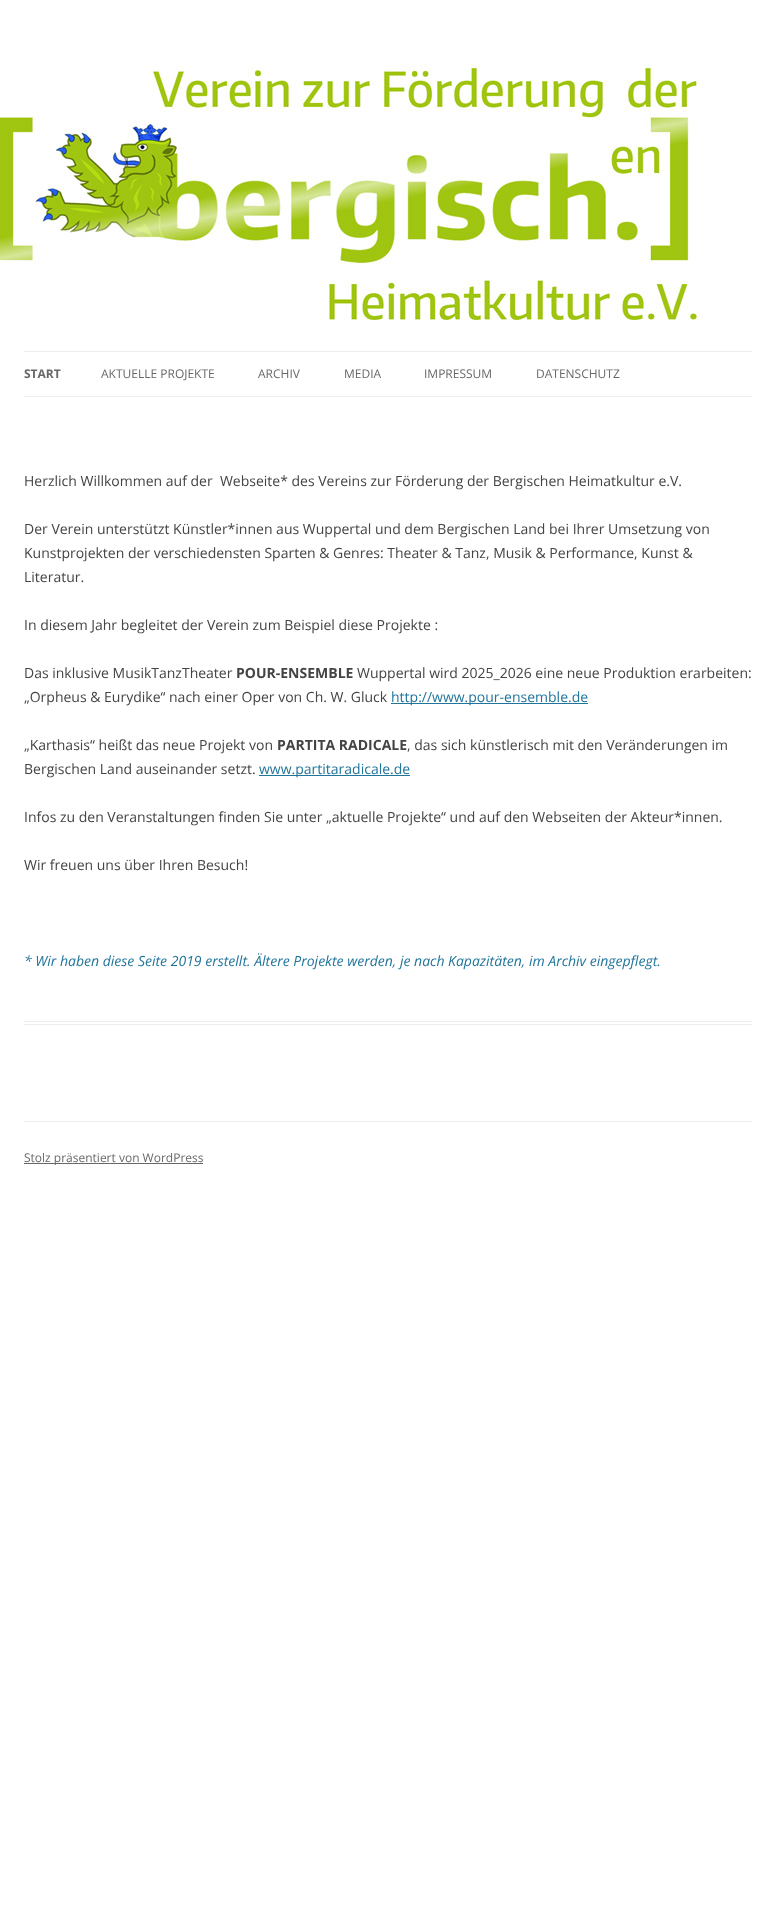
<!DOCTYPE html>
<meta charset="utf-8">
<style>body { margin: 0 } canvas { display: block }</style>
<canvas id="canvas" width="776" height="1931"></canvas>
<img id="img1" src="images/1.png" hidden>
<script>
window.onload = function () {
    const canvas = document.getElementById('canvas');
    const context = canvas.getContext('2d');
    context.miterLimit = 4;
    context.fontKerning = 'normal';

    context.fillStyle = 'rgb(255, 255, 255)';
    context.fillRect(0, 0, 776, 1931);
    context.drawImage(document.getElementById('img1'), 0, 64, 703, 257);
    context.fillStyle = 'rgb(237, 237, 237)';
    context.fillRect(24, 351, 728, 1);
    context.fillRect(24, 396, 728, 1);
    context.fillRect(24, 1021, 728, 1);
    context.fillRect(24, 1024, 728, 1);
    context.fillStyle = 'rgb(33, 117, 155)';
    context.fillRect(391, 703, 197, 1);
    context.fillRect(259, 775, 151, 1);
    context.fillStyle = 'rgb(237, 237, 237)';
    context.fillRect(24, 1121, 728, 1);
    context.fillStyle = 'rgb(104, 104, 104)';
    context.fillRect(24, 1163, 179, 1);
    context.font = 'bold 12px Open Sans';
    context.fillText('START', 24, 378);
    context.font = '12px Open Sans';
    context.fillText('AKTUELLE PROJEKTE', 101, 378);
    context.fillText('ARCHIV', 258, 378);
    context.fillText('MEDIA', 344, 378);
    context.fillText('IMPRESSUM', 424, 378);
    context.fillText('DATENSCHUTZ', 536, 378);
    context.font = '14px Open Sans';
    context.fillStyle = 'rgb(68, 68, 68)';
    context.fillText('Herzlich Willkommen auf der  Webseite* des Vereins zur Förderung der Bergischen Heimatkultur e.V.', 24, 486);
    context.fillText('Der Verein unterstützt Künstler*innen aus Wuppertal und dem Bergischen Land bei Ihrer Umsetzung von', 24, 534);
    context.fillText('Kunstprojekten der verschiedensten Sparten & Genres: Theater & Tanz, Musik & Performance, Kunst &', 24, 558);
    context.fillText('Literatur.', 24, 582);
    context.fillText('In diesem Jahr begleitet der Verein zum Beispiel diese Projekte :', 24, 630);
    context.fillText('Das inklusive MusikTanzTheater', 24, 678);
    context.font = 'bold 14px Open Sans';
    context.fillText('POUR-ENSEMBLE', 236, 678);
    context.font = '14px Open Sans';
    context.fillText('Wuppertal wird 2025_2026 eine neue Produktion erarbeiten:', 357, 678);
    context.fillText('„Orpheus & Eurydike“ nach einer Oper von Ch. W. Gluck', 24, 702);
    context.fillStyle = 'rgb(33, 117, 155)';
    context.fillText('http://www.pour-ensemble.de', 391, 702);
    context.fillStyle = 'rgb(68, 68, 68)';
    context.fillText('„Karthasis“ heißt das neue Projekt von', 24, 750);
    context.font = 'bold 14px Open Sans';
    context.fillText('PARTITA RADICALE', 277, 750);
    context.font = '14px Open Sans';
    context.fillText(', das sich künstlerisch mit den Veränderungen im', 407, 750);
    context.fillText('Bergischen Land auseinander setzt.', 24, 774);
    context.fillStyle = 'rgb(33, 117, 155)';
    context.fillText('www.partitaradicale.de', 259, 774);
    context.fillStyle = 'rgb(68, 68, 68)';
    context.fillText('Infos zu den Veranstaltungen finden Sie unter „aktuelle Projekte“ und auf den Webseiten der Akteur*innen.', 24, 822);
    context.fillText('Wir freuen uns über Ihren Besuch!', 24, 870);
    context.font = 'italic 14px Open Sans';
    context.fillStyle = 'rgb(33, 117, 155)';
    context.fillText('* Wir haben diese Seite 2019 erstellt. Ältere Projekte werden, je nach Kapazitäten, im Archiv eingepflegt.', 24, 966);
    context.font = '12px Open Sans';
    context.fillStyle = 'rgb(104, 104, 104)';
    context.fillText('Stolz präsentiert von WordPress', 24, 1162);
};
</script>
